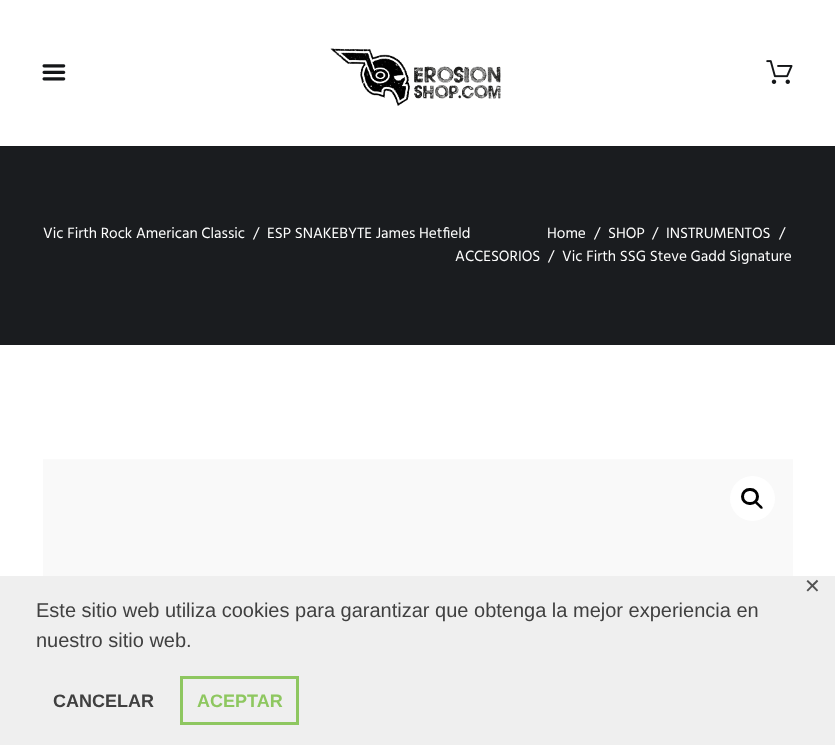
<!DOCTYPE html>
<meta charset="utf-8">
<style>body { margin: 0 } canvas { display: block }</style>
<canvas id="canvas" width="835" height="745"></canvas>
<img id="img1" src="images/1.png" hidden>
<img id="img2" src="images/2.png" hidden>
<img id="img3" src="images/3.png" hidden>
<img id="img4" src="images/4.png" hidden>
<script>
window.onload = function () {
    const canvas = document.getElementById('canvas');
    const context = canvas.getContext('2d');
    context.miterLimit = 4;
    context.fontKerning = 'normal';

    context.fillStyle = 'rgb(255, 255, 255)';
    context.fillRect(0, 0, 835, 745);
    context.drawImage(document.getElementById('img1'), 42, 64, 24, 17);
    context.drawImage(document.getElementById('img2'), 330, 48, 171, 58);
    context.drawImage(document.getElementById('img3'), 766, 60, 27, 24);
    context.fillStyle = 'rgb(26, 28, 31)';
    context.fillRect(0, 147, 835, 198);
    context.fillStyle = 'rgb(23, 25, 28)';
    context.fillRect(0, 146, 835, 1);
    context.drawImage(document.getElementById('img4'), 43, 459, 750, 117);
    context.fillStyle = 'rgb(255, 255, 255)';
    context.beginPath();
    context.arc(752.5, 498.5, 22.5, 0, 2 * Math.PI);
    context.fill();
    context.beginPath();
    context.roundRect(742.5, 489.5, 15, 14, 7);
    context.strokeStyle = 'rgb(0, 0, 0)';
    context.lineWidth = 3;
    context.stroke();
    context.fillStyle = 'rgb(0, 0, 0)';
    context.beginPath();
    context.moveTo(755, 501.5);
    context.bezierCurveTo(756.5, 500, 759, 503.5, 759.5, 504);
    context.bezierCurveTo(760.5, 505, 763.5, 507, 762.5, 508.5);
    context.bezierCurveTo(761, 510, 758.5, 506.5, 758, 506);
    context.bezierCurveTo(757, 505, 754, 503, 755, 501.5);
    context.closePath();
    context.fill();
    context.fillStyle = 'rgb(239, 239, 239)';
    context.fillRect(0, 576, 835, 169);
    context.strokeStyle = 'rgb(142, 199, 96)';
    context.strokeRect(181.5, 677.5, 116, 46);
    context.font = '15.25px Hind';
    context.fillStyle = 'rgb(255, 255, 255)';
    context.fillText('Vic Firth Rock American Classic', 43, 238);
    context.fillText('/', 253, 238);
    context.fillText('ESP SNAKEBYTE James Hetfield', 267, 238);
    context.fillText('Home', 547, 238);
    context.fillText('/', 594, 238);
    context.fillText('SHOP', 608, 238);
    context.fillText('/', 652, 238);
    context.fillText('INSTRUMENTOS', 666, 238);
    context.fillText('/', 779, 238);
    context.fillText('ACCESORIOS', 455, 261);
    context.fillText('/', 548, 261);
    context.fillText('Vic Firth SSG Steve Gadd Signature', 562, 261);
    context.font = '20px DejaVu Sans';
    context.fillStyle = 'rgb(82, 82, 82)';
    context.fillText('✕', 804, 593);
    context.font = '20px Liberation Sans';
    context.fillStyle = 'rgb(64, 64, 64)';
    context.fillText('Este sitio web utiliza cookies para garantizar que obtenga la mejor experiencia en', 36, 617);
    context.fillText('nuestro sitio web.', 36, 647);
    context.font = 'bold 18px Liberation Sans';
    context.fillText('CANCELAR', 53, 707);
    context.fillStyle = 'rgb(142, 199, 96)';
    context.fillText('ACEPTAR', 197, 707);
};
</script>
